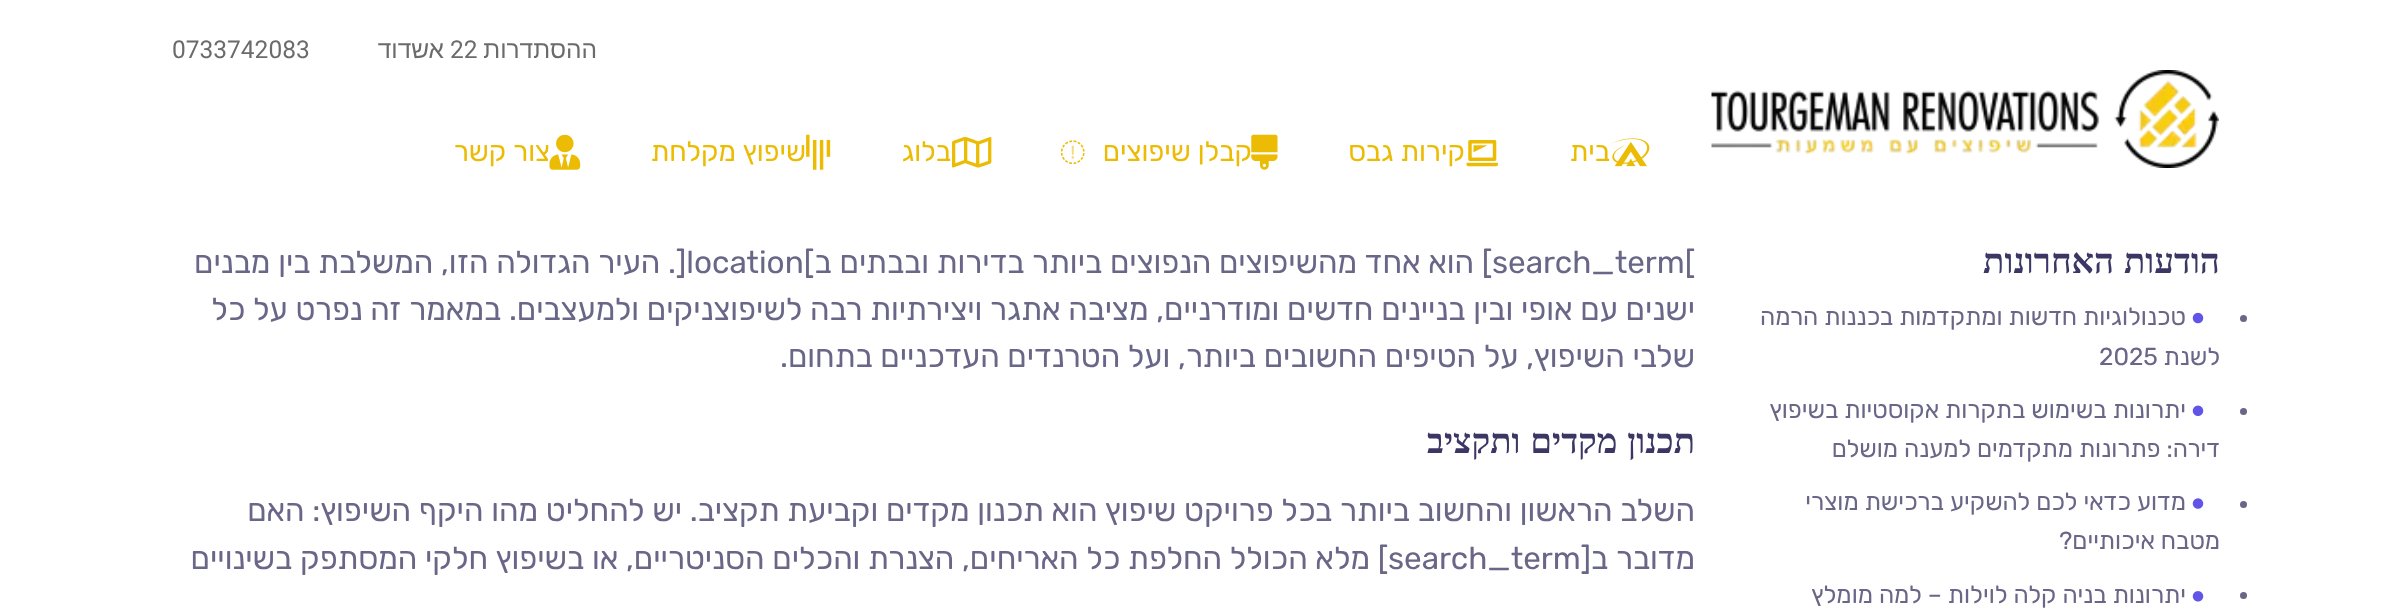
<!DOCTYPE html>
<meta charset="utf-8">
<style>body { margin: 0 } canvas { display: block }</style>
<canvas id="canvas" width="2392" height="612"></canvas>
<img id="img1" src="images/1.png" hidden>
<img id="img2" src="images/2.png" hidden>
<img id="img3" src="images/3.png" hidden>
<img id="img4" src="images/4.png" hidden>
<img id="img5" src="images/5.png" hidden>
<img id="img6" src="images/6.png" hidden>
<img id="img7" src="images/7.png" hidden>
<img id="img8" src="images/8.png" hidden>
<img id="img9" src="images/9.png" hidden>
<img id="img10" src="images/10.png" hidden>
<img id="img11" src="images/11.png" hidden>
<img id="img12" src="images/12.png" hidden>
<script>
window.onload = function () {
    const canvas = document.getElementById('canvas');
    const context = canvas.getContext('2d');
    context.miterLimit = 4;
    context.fontKerning = 'normal';

    context.fillStyle = 'rgb(255, 255, 255)';
    context.fillRect(0, 0, 2392, 612);
    context.drawImage(document.getElementById('img1'), 1711, 70, 508, 98);
    context.drawImage(document.getElementById('img2'), 1611, 138, 39, 29);
    context.drawImage(document.getElementById('img3'), 1466, 140, 32, 27);
    context.drawImage(document.getElementById('img4'), 1251, 134, 27, 36);
    context.drawImage(document.getElementById('img5'), 1060, 140, 25, 25);
    context.drawImage(document.getElementById('img6'), 952, 137, 40, 31);
    context.drawImage(document.getElementById('img7'), 806, 134, 25, 36);
    context.drawImage(document.getElementById('img8'), 549, 134, 32, 36);
    context.fillStyle = 'rgb(105, 102, 135)';
    context.beginPath();
    context.arc(2243.5, 318.5, 3.5, 0, 2 * Math.PI);
    context.fill();
    context.drawImage(document.getElementById('img9'), 2192, 312, 12, 12);
    context.beginPath();
    context.arc(2243.5, 411.5, 3.5, 0, 2 * Math.PI);
    context.fill();
    context.drawImage(document.getElementById('img10'), 2192, 405, 12, 11);
    context.beginPath();
    context.arc(2243.5, 504.5, 3.5, 0, 2 * Math.PI);
    context.fill();
    context.drawImage(document.getElementById('img11'), 2192, 498, 12, 11);
    context.beginPath();
    context.arc(2243.5, 595.5, 3.5, 0, 2 * Math.PI);
    context.fill();
    context.drawImage(document.getElementById('img12'), 2192, 591, 12, 11);
    context.direction = 'rtl';
    context.font = '24.5px Liberation Sans';
    context.fillStyle = 'rgb(107, 107, 107)';
    context.fillText('ההסתדרות', 597, 58);
    context.direction = 'ltr';
    context.font = '24.5px Roboto';
    context.fillText('22', 450, 58);
    context.direction = 'rtl';
    context.font = '24.5px Liberation Sans';
    context.fillText('אשדוד', 444, 58);
    context.direction = 'ltr';
    context.font = '24.5px Roboto';
    context.fillText('0733742083', 172, 58);
    context.direction = 'rtl';
    context.font = '28px Rubik';
    context.fillStyle = 'rgb(235, 188, 3)';
    context.fillText('בית', 1610, 161);
    context.fillText('קירות גבס', 1465, 161);
    context.fillText('קבלן שיפוצים', 1252, 161);
    context.fillText('בלוג', 951, 161);
    context.fillText('שיפוץ מקלחת', 806, 161);
    context.fillText('צור קשר', 550, 161);
    context.wordSpacing = '1px';
    context.font = 'bold 35px Liberation Serif';
    context.fillStyle = 'rgb(59, 54, 99)';
    context.fillText('הודעות האחרונות', 2220, 273);
    context.wordSpacing = '0px';
    context.font = '24.5px Rubik';
    context.fillStyle = 'rgb(105, 102, 135)';
    context.fillText('טכנולוגיות חדשות ומתקדמות בכננות הרמה', 2186, 325);
    context.fillText('לשנת', 2220, 365);
    context.direction = 'ltr';
    context.fillText('2025', 2099, 365);
    context.direction = 'rtl';
    context.fillText('יתרונות בשימוש בתקרות אקוסטיות בשיפוץ', 2186, 418);
    context.fillText('דירה: פתרונות מתקדמים למענה מושלם', 2220, 457);
    context.fillText('מדוע כדאי לכם להשקיע ברכישת מוצרי', 2186, 510);
    context.fillText('מטבח איכותיים?', 2220, 549);
    context.fillText('יתרונות בניה קלה לוילות – למה מומלץ', 2186, 603);
    context.direction = 'ltr';
    context.font = '31.5px Rubik';
    context.fillText('search_term[', 1492, 273);
    context.direction = 'rtl';
    context.fillText('] הוא אחד מהשיפוצים הנפוצים ביותר בדירות ובבתים ב', 1492, 273);
    context.direction = 'ltr';
    context.fillText(']location[', 676, 273);
    context.direction = 'rtl';
    context.fillText('. העיר הגדולה הזו, המשלבת בין מבנים', 676, 273);
    context.fillText('ישנים עם אופי ובין בניינים חדשים ומודרניים, מציבה אתגר ויצירתיות רבה לשיפוצניקים ולמעצבים. במאמר זה נפרט על כל', 1695, 320);
    context.fillText('שלבי השיפוץ, על הטיפים החשובים ביותר, ועל הטרנדים העדכניים בתחום.', 1695, 367);
    context.wordSpacing = '1px';
    context.font = 'bold 35px Liberation Serif';
    context.fillStyle = 'rgb(59, 54, 99)';
    context.fillText('תכנון מקדים ותקציב', 1695, 453);
    context.wordSpacing = '0px';
    context.font = '31.5px Rubik';
    context.fillStyle = 'rgb(105, 102, 135)';
    context.fillText('השלב הראשון והחשוב ביותר בכל פרויקט שיפוץ הוא תכנון מקדים וקביעת תקציב. יש להחליט מהו היקף השיפוץ: האם', 1695, 521);
    context.fillText('מדובר ב[', 1695, 569);
    context.direction = 'ltr';
    context.fillText('search_term', 1388, 569);
    context.direction = 'rtl';
    context.fillText('] מלא הכולל החלפת כל האריחים, הצנרת והכלים הסניטריים, או בשיפוץ חלקי המסתפק בשינויים', 1388, 569);
};
</script>
